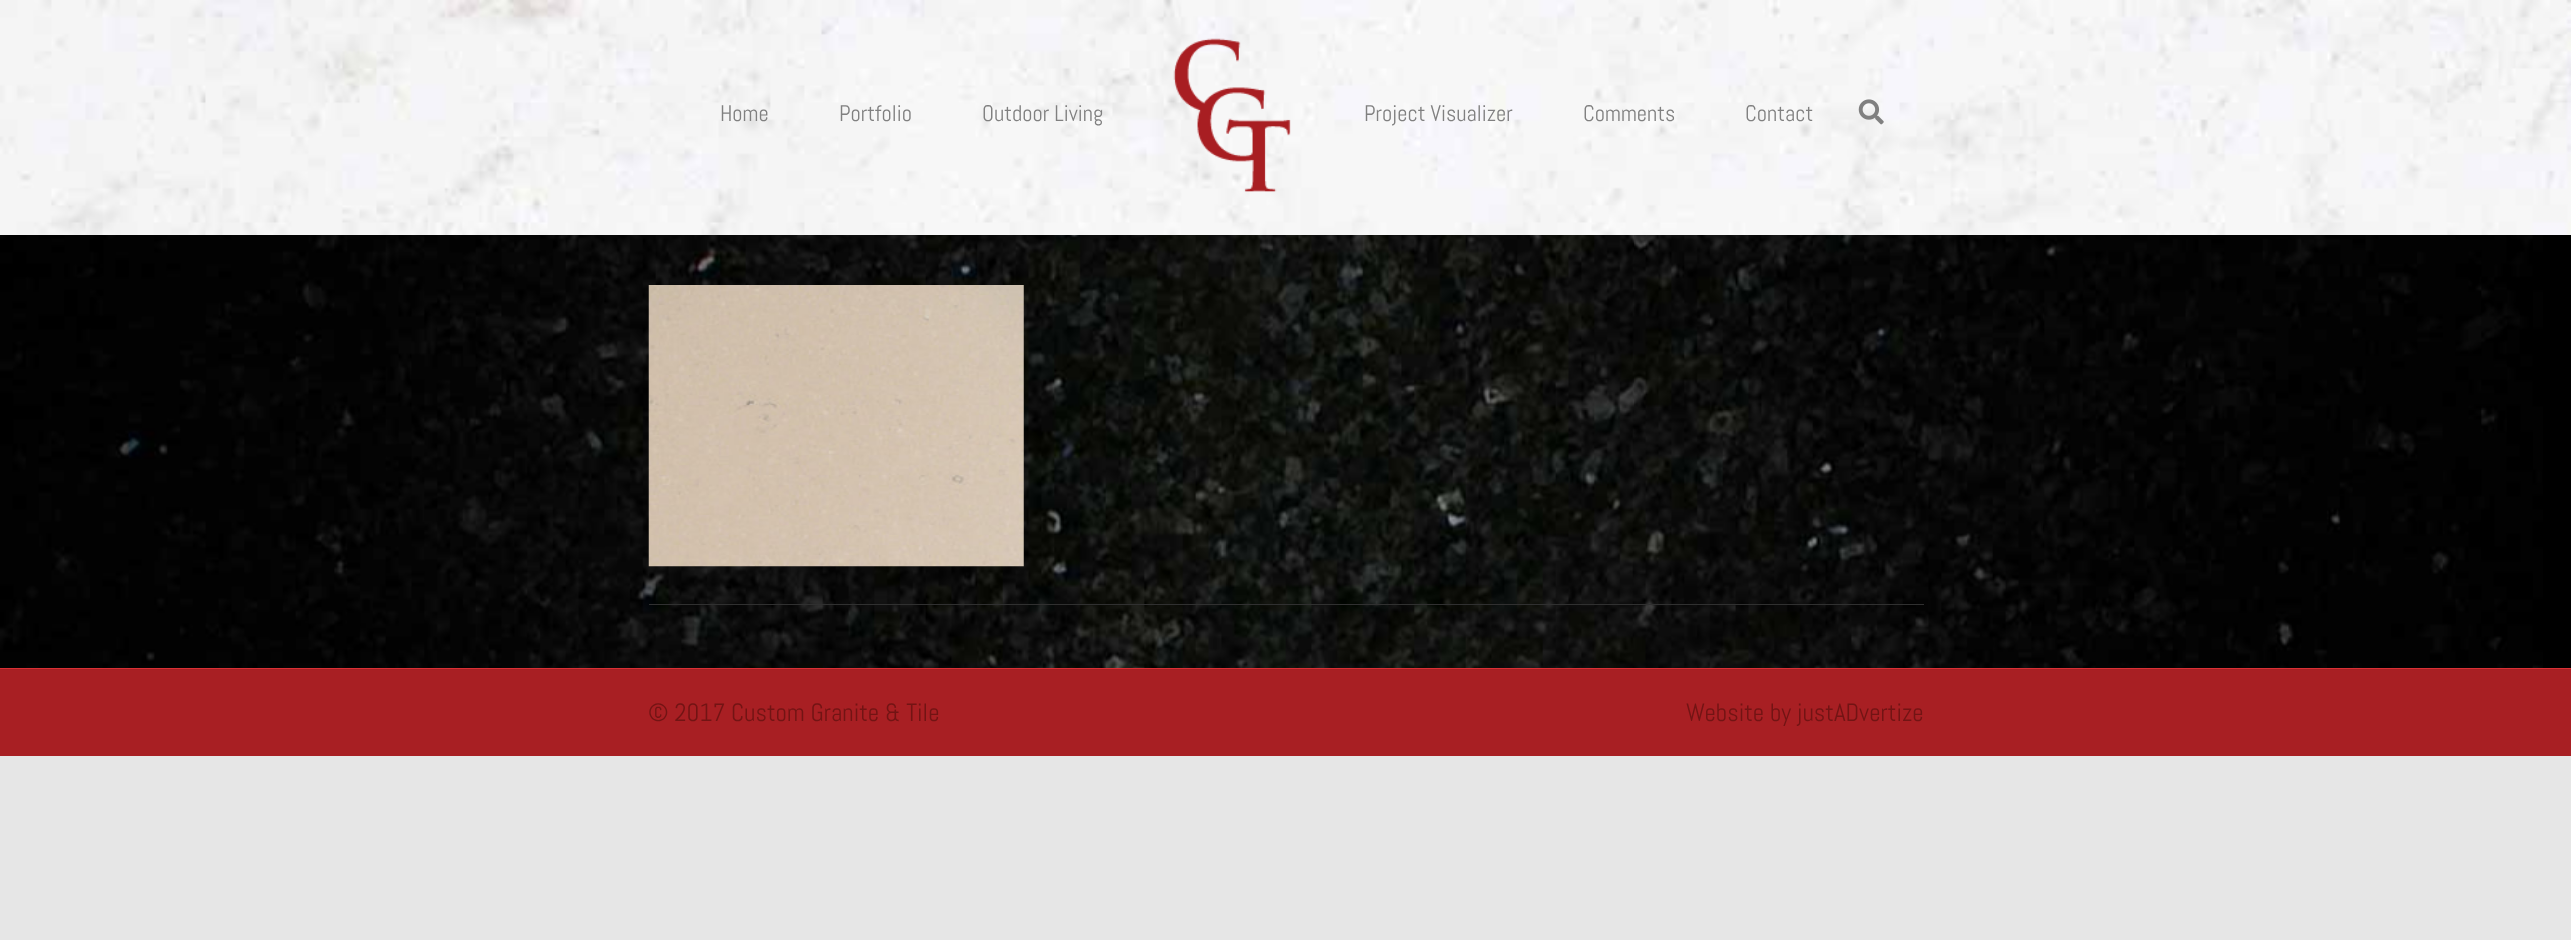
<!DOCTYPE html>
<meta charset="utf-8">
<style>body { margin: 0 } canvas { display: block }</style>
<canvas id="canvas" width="2571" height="940"></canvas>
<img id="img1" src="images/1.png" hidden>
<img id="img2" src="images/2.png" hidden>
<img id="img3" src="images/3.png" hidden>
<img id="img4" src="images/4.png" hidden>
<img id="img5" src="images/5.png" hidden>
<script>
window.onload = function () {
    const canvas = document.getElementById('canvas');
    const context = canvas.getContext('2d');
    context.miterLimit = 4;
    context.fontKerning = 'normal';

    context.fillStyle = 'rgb(230, 230, 230)';
    context.fillRect(0, 0, 2571, 940);
    context.drawImage(document.getElementById('img1'), 0, 0, 2571, 235);
    context.drawImage(document.getElementById('img2'), 1173, 38, 118, 154);
    context.drawImage(document.getElementById('img3'), 1858, 99, 26, 26);
    context.fillStyle = 'rgb(0, 0, 0)';
    context.fillRect(2543, 235, 28, 433);
    context.drawImage(document.getElementById('img4'), 0, 235, 2543, 433);
    context.drawImage(document.getElementById('img5'), 648, 285, 376, 282);
    context.fillStyle = 'rgb(48, 48, 48)';
    context.fillRect(649, 604, 1275, 1);
    context.fillStyle = 'rgb(168, 31, 35)';
    context.fillRect(0, 669, 2571, 87);
    context.fillStyle = 'rgb(217, 48, 53)';
    context.fillRect(0, 668, 2571, 1);
    context.font = '22.5px Abel';
    context.fillStyle = 'rgb(128, 128, 128)';
    context.fillText('Home', 720, 121);
    context.fillText('Portfolio', 839, 121);
    context.fillText('Outdoor Living', 982, 121);
    context.fillText('Project Visualizer', 1364, 121);
    context.fillText('Comments', 1583, 121);
    context.fillText('Contact', 1745, 121);
    context.font = '25px Abel';
    context.fillStyle = 'rgb(114, 20, 20)';
    context.fillText('© 2017 Custom Granite & Tile', 648, 721);
    context.fillText('Website by justADvertize', 1686, 721);
};
</script>
